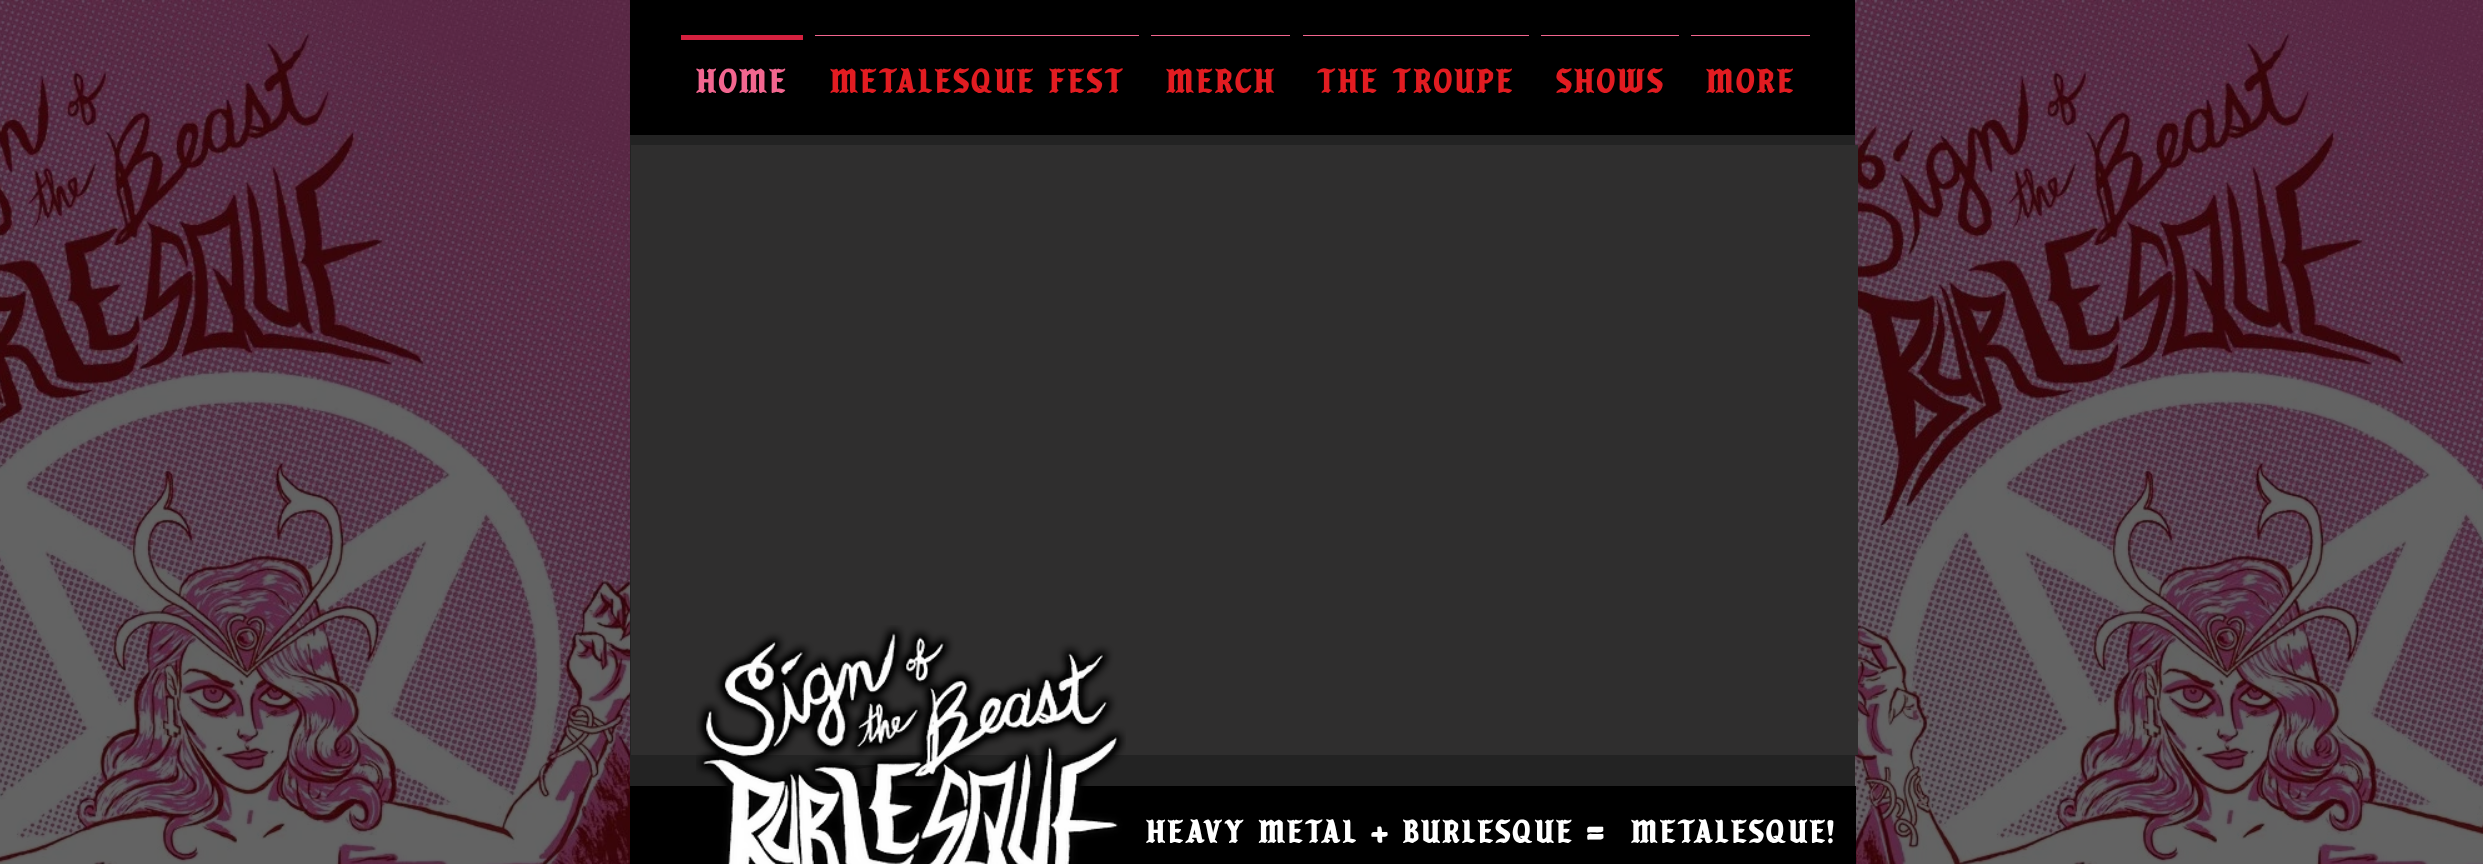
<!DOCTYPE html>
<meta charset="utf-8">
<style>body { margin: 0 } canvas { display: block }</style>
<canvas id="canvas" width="2483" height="864"></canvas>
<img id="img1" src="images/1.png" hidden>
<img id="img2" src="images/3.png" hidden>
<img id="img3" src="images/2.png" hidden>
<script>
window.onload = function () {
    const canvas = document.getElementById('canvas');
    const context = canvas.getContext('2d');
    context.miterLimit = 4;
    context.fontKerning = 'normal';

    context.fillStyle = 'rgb(0, 0, 0)';
    context.fillRect(0, 0, 2483, 864);
    context.drawImage(document.getElementById('img1'), 0, 0, 2483, 864);
    context.fillRect(630, 0, 1225, 135);
    context.fillStyle = 'rgb(212, 32, 62)';
    context.fillRect(681, 35, 122, 5);
    context.fillStyle = 'rgb(242, 102, 143)';
    context.fillRect(815, 35, 324, 1);
    context.fillRect(1151, 35, 139, 1);
    context.fillRect(1303, 35, 226, 1);
    context.fillRect(1541, 35, 138, 1);
    context.fillRect(1691, 35, 119, 1);
    context.fillStyle = 'rgb(35, 35, 35)';
    context.fillRect(630, 135, 1225, 651);
    context.fillStyle = 'rgb(47, 46, 46)';
    context.fillRect(631, 145, 1227, 610);
    context.drawImage(document.getElementById('img2'), 804, 765, 182, 21);
    context.fillStyle = 'rgb(0, 0, 0)';
    context.fillRect(630, 786, 1226, 78);
    context.drawImage(document.getElementById('img3'), 696, 625, 430, 239);
    context.font = '27.5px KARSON';
    context.fillStyle = 'rgb(242, 102, 143)';
    context.fillText('HOME', 695, 93);
    context.fillStyle = 'rgb(226, 28, 33)';
    context.fillText('METALESQUE FEST', 829, 93);
    context.fillText('MERCH', 1165, 93);
    context.fillText('THE TROUPE', 1316, 93);
    context.fillText('SHOWS', 1555, 93);
    context.fillText('More', 1705, 93);
    context.font = '26.25px KARSON';
    context.fillStyle = 'rgb(255, 255, 255)';
    context.fillText('HEAVY METAL + BURLESQUE =  METALESQUE!', 1145, 843);
};
</script>
